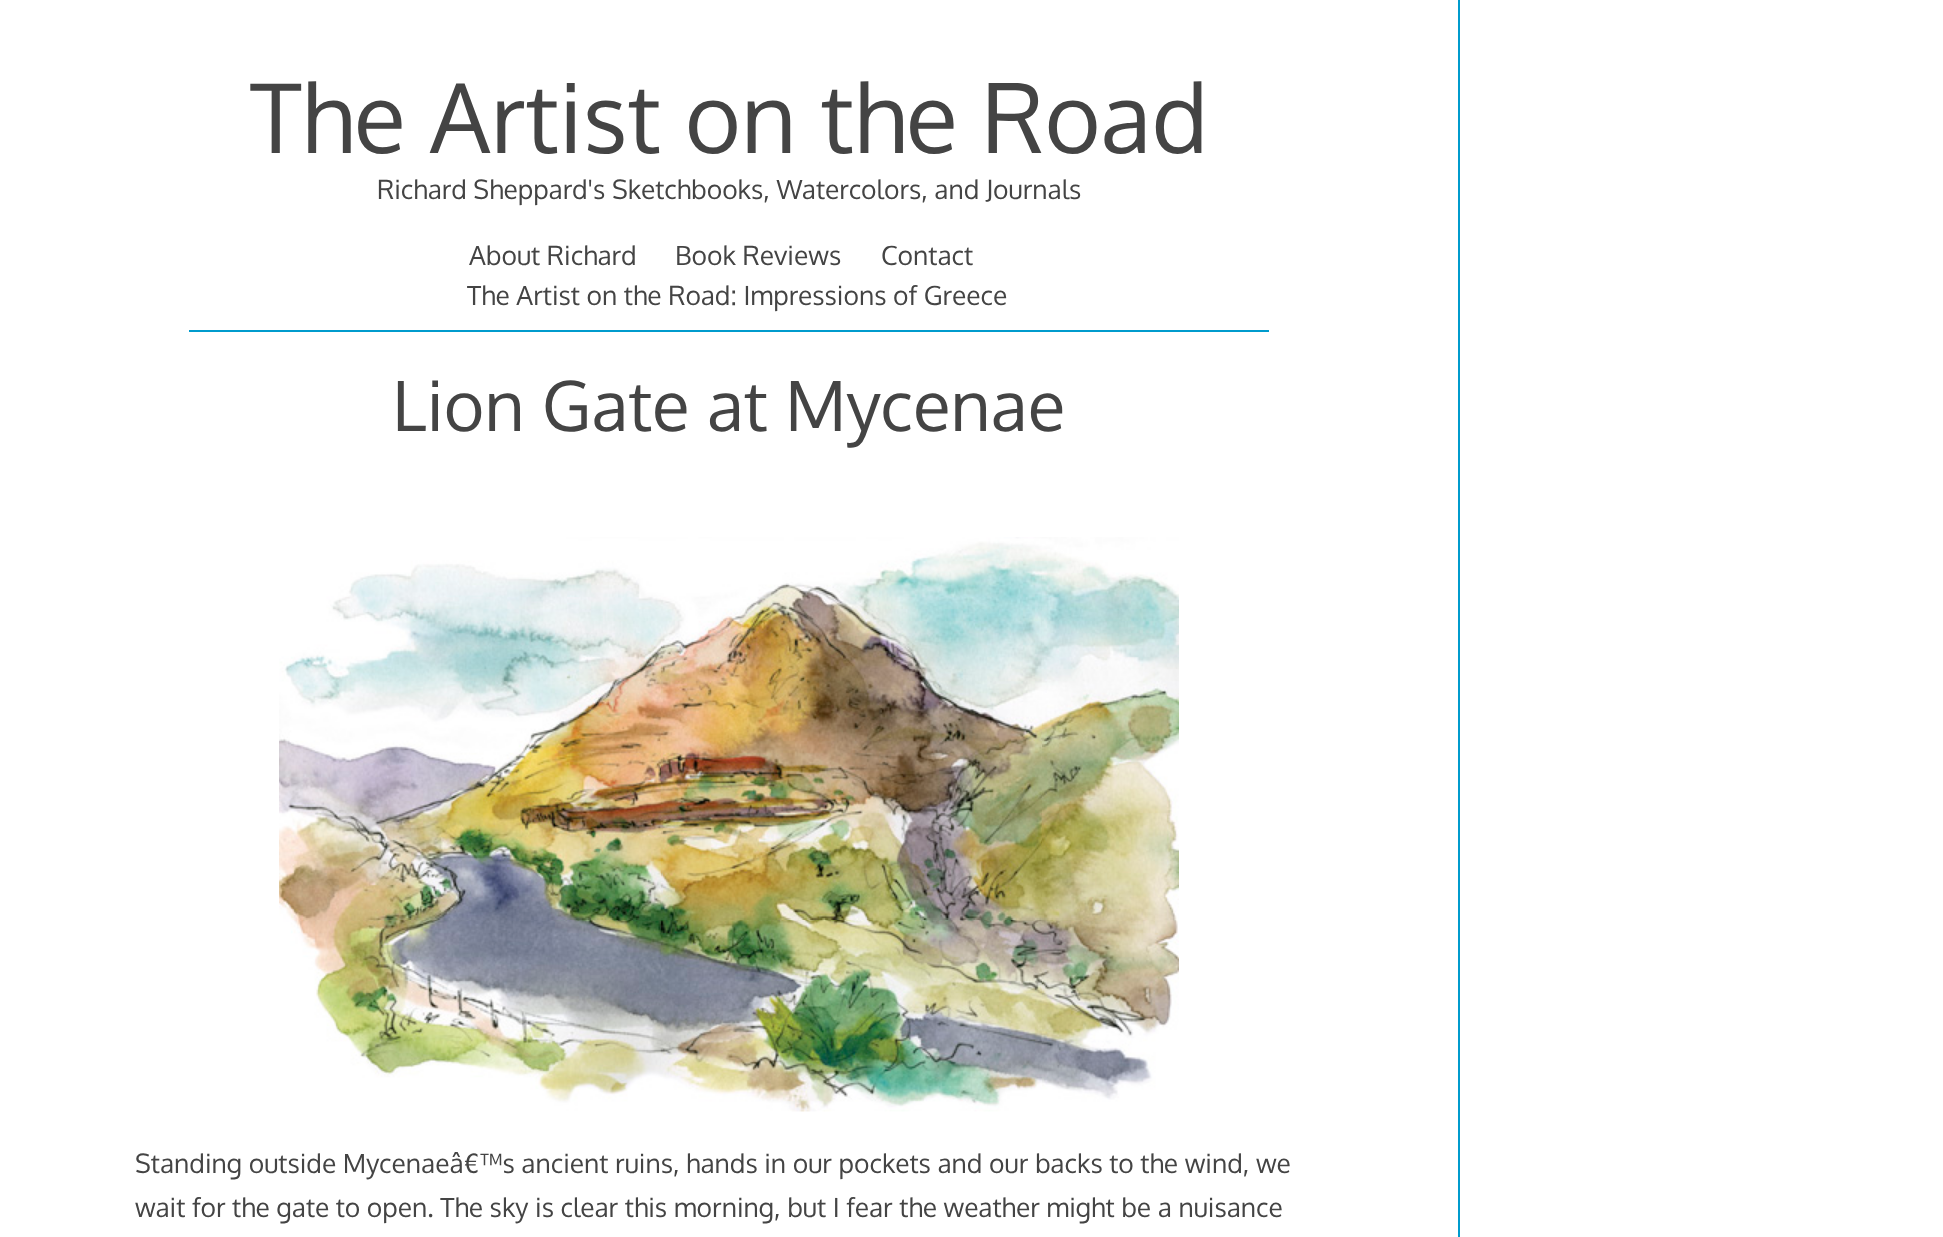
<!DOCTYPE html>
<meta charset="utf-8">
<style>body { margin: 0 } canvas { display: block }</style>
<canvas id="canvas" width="1943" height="1237"></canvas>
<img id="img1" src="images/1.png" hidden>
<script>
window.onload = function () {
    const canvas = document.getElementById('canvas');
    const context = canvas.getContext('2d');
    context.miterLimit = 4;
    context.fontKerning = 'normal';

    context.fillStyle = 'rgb(255, 255, 255)';
    context.fillRect(0, 0, 1943, 1237);
    context.fillStyle = 'rgb(0, 155, 205)';
    context.fillRect(189, 330, 1080, 2);
    context.drawImage(document.getElementById('img1'), 279, 537, 900, 575);
    context.fillRect(1458, 0, 2, 1237);
    context.font = '96px Oxygen';
    context.fillStyle = 'rgb(68, 68, 68)';
    context.fillText('The Artist on the Road', 250, 153);
    context.font = '26.4px Oxygen';
    context.fillText('Richard Sheppard\'s Sketchbooks, Watercolors, and Journals', 377, 199);
    context.fillText('About Richard', 469, 265);
    context.fillText('Book Reviews', 675, 265);
    context.fillText('Contact', 881, 265);
    context.fillText('The Artist on the Road: Impressions of Greece', 467, 305);
    context.font = '69.25px Oxygen';
    context.fillText('Lion Gate at Mycenae', 392, 431);
    context.font = '26.4px Oxygen';
    context.fillText('Standing outside Mycenaeâ€™s ancient ruins, hands in our pockets and our backs to the wind, we', 135, 1173);
    context.fillText('wait for the gate to open. The sky is clear this morning, but I fear the weather might be a nuisance', 135, 1217);
};
</script>
